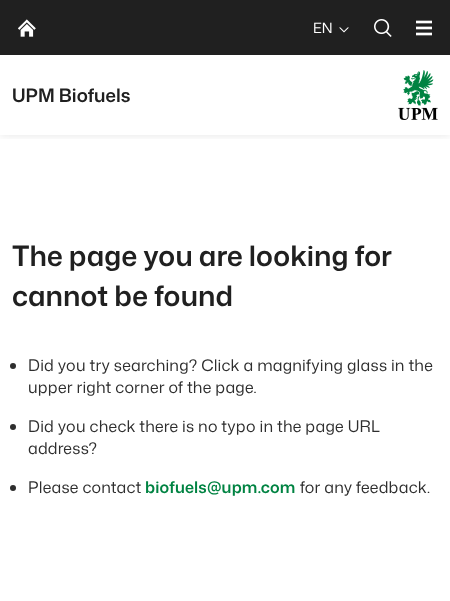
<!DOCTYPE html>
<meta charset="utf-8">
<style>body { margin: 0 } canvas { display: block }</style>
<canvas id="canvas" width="450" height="601"></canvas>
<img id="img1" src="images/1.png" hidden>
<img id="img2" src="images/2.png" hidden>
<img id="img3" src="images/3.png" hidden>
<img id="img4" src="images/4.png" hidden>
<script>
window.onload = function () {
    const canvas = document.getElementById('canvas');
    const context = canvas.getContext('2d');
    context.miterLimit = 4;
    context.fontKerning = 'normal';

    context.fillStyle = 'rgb(255, 255, 255)';
    context.fillRect(0, 0, 450, 601);
    context.save();
    context.beginPath();
    context.rect(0, 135, 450, 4);
    context.clip();
    context.fillStyle = 'rgba(0, 0, 0, 0.1)';
    context.filter = 'blur(5px)';
    context.beginPath();
    context.rect(0, 55, 450, 80);
    context.fill();
    context.filter = 'none';
    context.restore();
    context.fillStyle = 'rgb(32, 32, 32)';
    context.fillRect(0, 0, 450, 55);
    context.drawImage(document.getElementById('img1'), 18, 19, 18, 18);
    context.fillStyle = 'rgb(255, 255, 255)';
    context.beginPath();
    context.moveTo(349, 27.5);
    context.lineTo(344, 32.5);
    context.lineTo(344, 31);
    context.lineTo(347.5, 27.5);
    context.closePath();
    context.moveTo(344, 32.5);
    context.lineTo(339, 27.5);
    context.lineTo(340.5, 27.5);
    context.lineTo(344, 31);
    context.closePath();
    context.fill();
    context.drawImage(document.getElementById('img2'), 374, 19, 18, 18);
    context.drawImage(document.getElementById('img3'), 416, 20, 16, 16);
    context.drawImage(document.getElementById('img4'), 398, 70, 40, 50);
    context.fillStyle = 'rgb(46, 46, 46)';
    context.beginPath();
    context.arc(13, 366, 3, 0, 2 * Math.PI);
    context.fill();
    context.beginPath();
    context.arc(13, 427, 3, 0, 2 * Math.PI);
    context.fill();
    context.beginPath();
    context.arc(13, 488, 3, 0, 2 * Math.PI);
    context.fill();
    context.font = '14px Mona Sans';
    context.fillStyle = 'rgb(255, 255, 255)';
    context.fillText('EN', 313, 33);
    context.font = '600 18.5px Mona Sans';
    context.fillStyle = 'rgb(32, 32, 32)';
    context.fillText('UPM Biofuels', 12, 102);
    context.font = '600 28px Mona Sans';
    context.fillText('The page you are looking for', 12, 266);
    context.fillText('cannot be found', 12, 306);
    context.letterSpacing = '0.15px';
    context.font = '16px Mona Sans';
    context.fillStyle = 'rgb(46, 46, 46)';
    context.fillText('Did you try searching? Click a magnifying glass in the', 28, 371);
    context.fillText('upper right corner of the page.', 28, 393);
    context.fillText('Did you check there is no typo in the page URL', 28, 432);
    context.fillText('address?', 28, 454);
    context.fillText('Please contact', 28, 493);
    context.font = '600 16px Mona Sans';
    context.fillStyle = 'rgb(0, 131, 66)';
    context.fillText('biofuels@upm.com', 145, 493);
    context.font = '16px Mona Sans';
    context.fillStyle = 'rgb(46, 46, 46)';
    context.fillText('for any feedback.', 300, 493);
};
</script>
